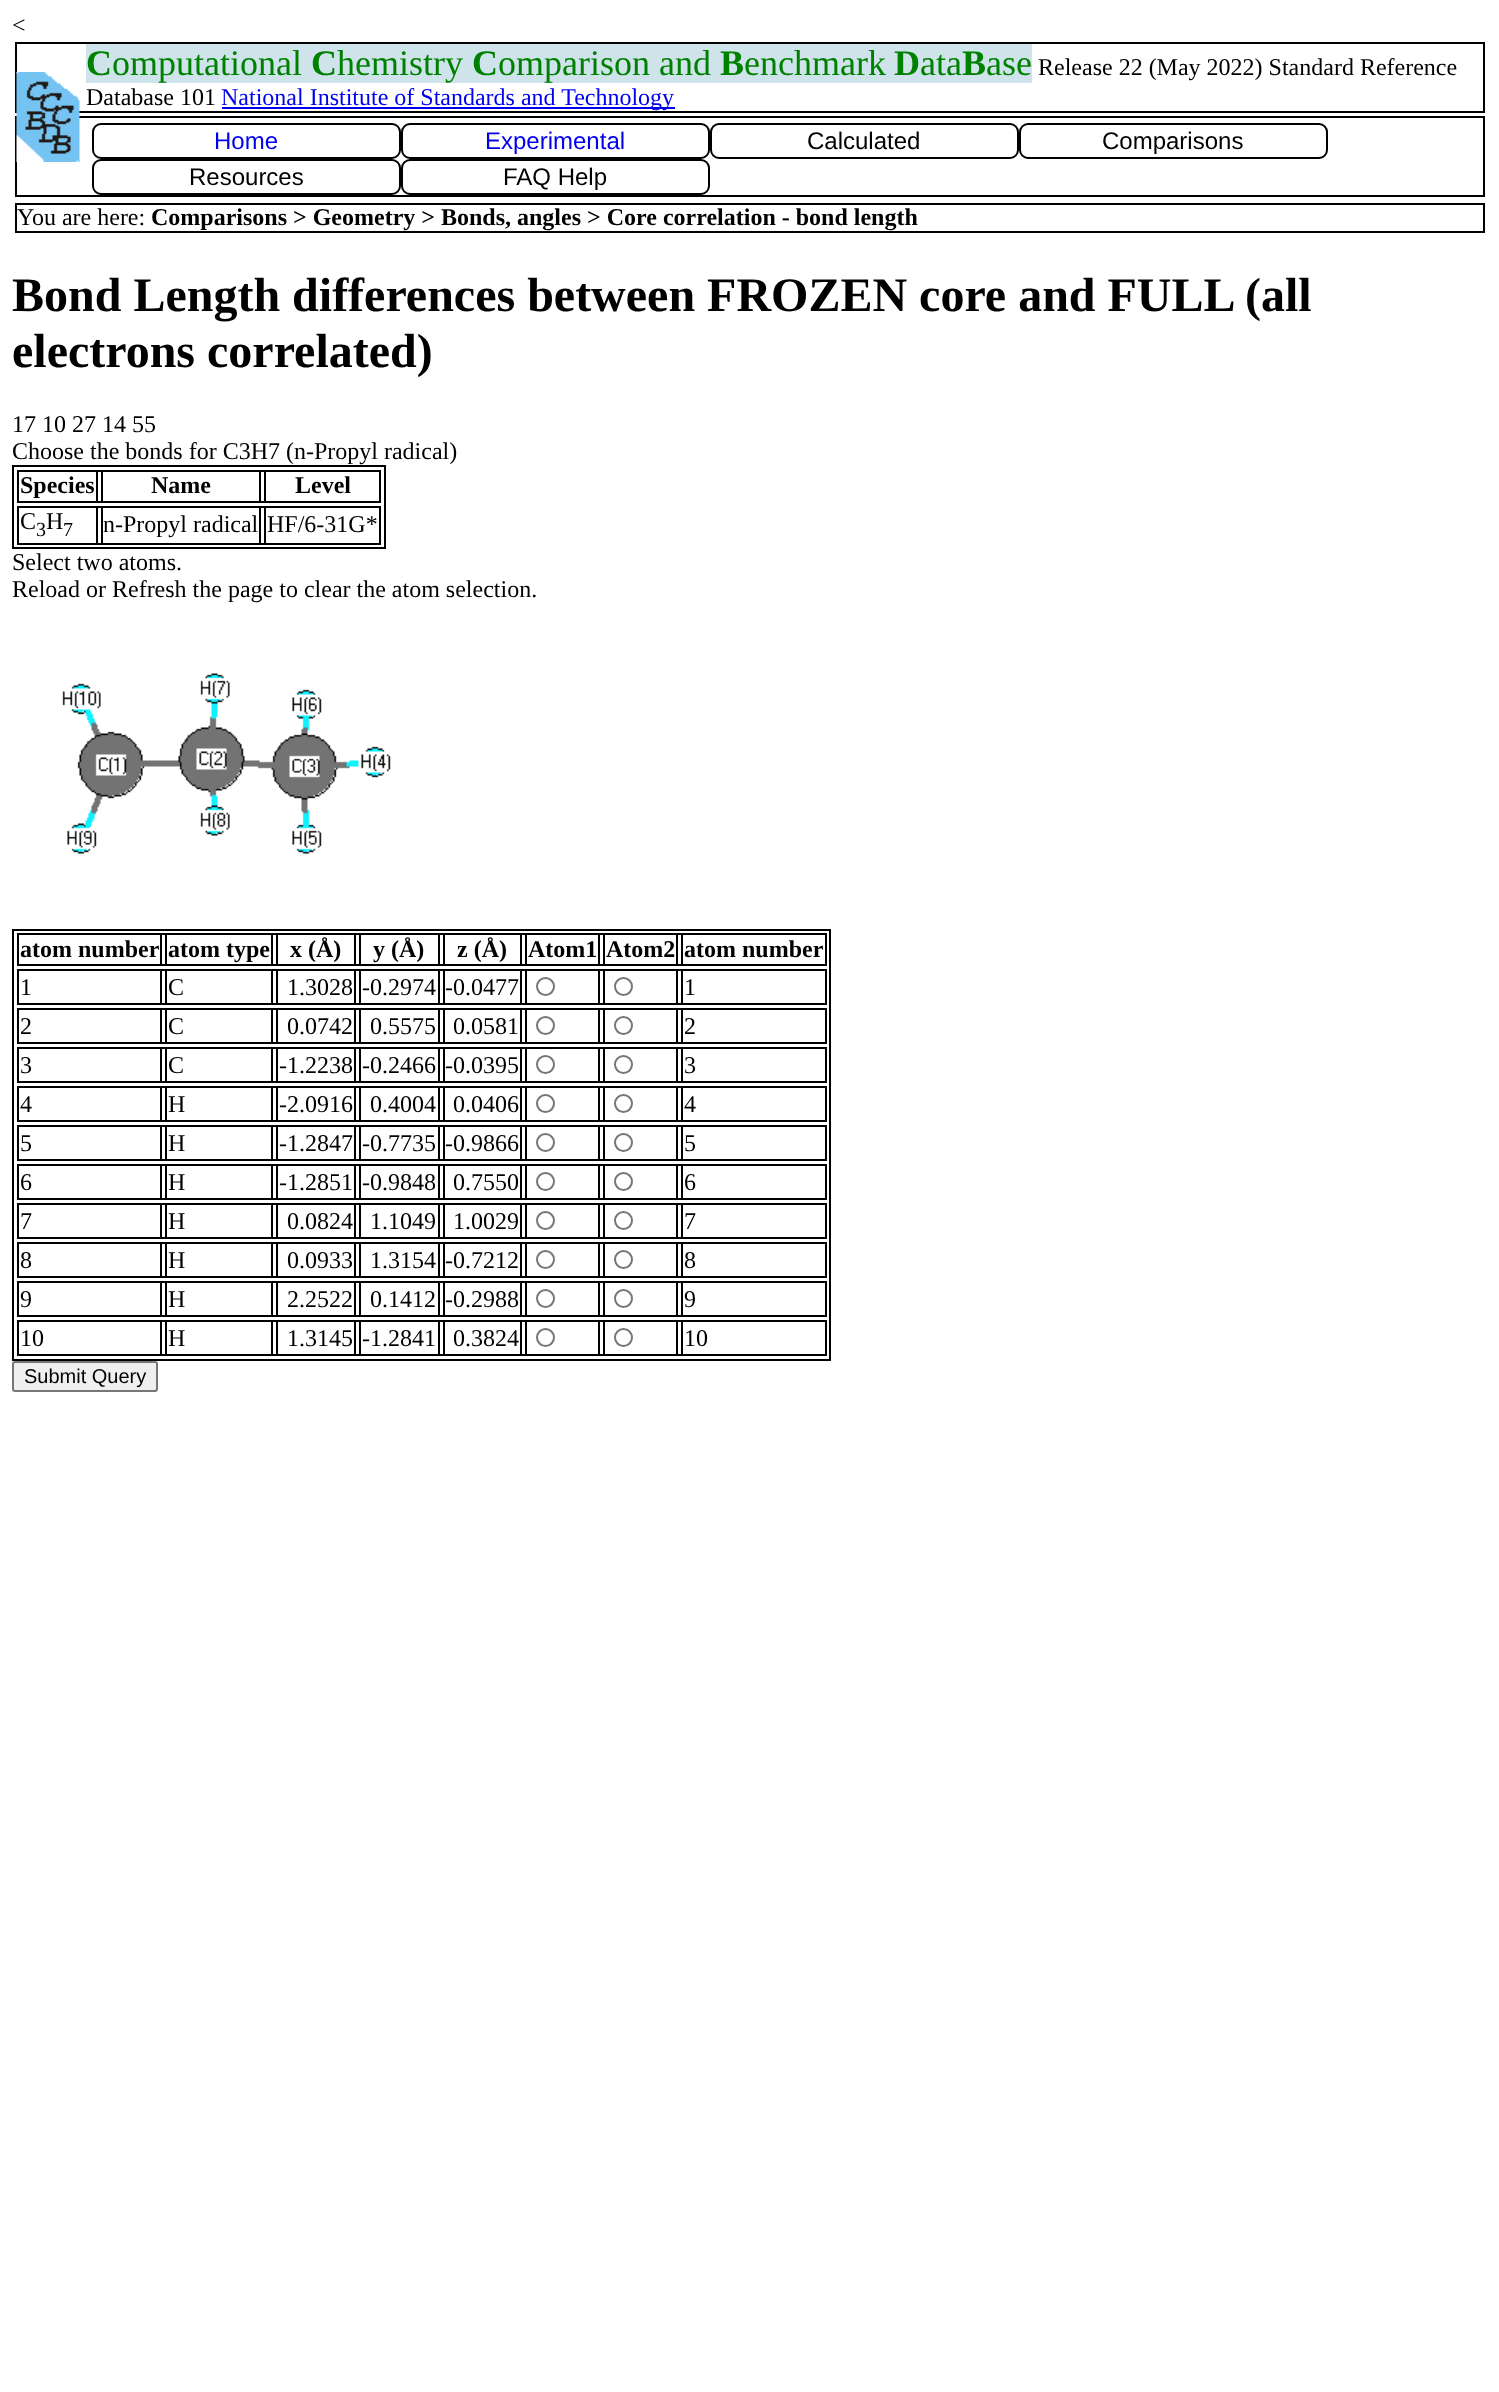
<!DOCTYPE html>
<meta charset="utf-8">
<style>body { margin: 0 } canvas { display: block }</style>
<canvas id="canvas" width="1499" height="2392"></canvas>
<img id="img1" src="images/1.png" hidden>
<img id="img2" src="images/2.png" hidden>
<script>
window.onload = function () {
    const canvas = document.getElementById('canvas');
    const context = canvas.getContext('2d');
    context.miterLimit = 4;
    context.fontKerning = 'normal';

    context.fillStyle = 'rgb(255, 255, 255)';
    context.fillRect(0, 0, 1499, 2392);
    context.strokeStyle = 'rgb(0, 0, 0)';
    context.lineWidth = 2;
    context.strokeRect(16, 43, 1468, 69);
    context.strokeRect(16, 117, 1468, 79);
    context.drawImage(document.getElementById('img1'), 16, 72, 64, 90);
    context.fillStyle = 'rgb(206, 227, 234)';
    context.fillRect(86, 44, 946, 39);
    context.fillStyle = 'rgb(0, 0, 238)';
    context.fillRect(222, 107, 453, 2);
    context.beginPath();
    context.roundRect(93, 124, 307, 34, 8);
    context.stroke();
    context.beginPath();
    context.roundRect(402, 124, 307, 34, 8);
    context.stroke();
    context.beginPath();
    context.roundRect(711, 124, 307, 34, 8);
    context.stroke();
    context.beginPath();
    context.roundRect(1020, 124, 307, 34, 8);
    context.stroke();
    context.beginPath();
    context.roundRect(93, 160, 307, 34, 8);
    context.stroke();
    context.beginPath();
    context.roundRect(402, 160, 307, 34, 8);
    context.stroke();
    context.strokeRect(16, 204, 1468, 28);
    context.strokeRect(13, 466, 372, 82);
    context.strokeRect(18, 471, 362, 31);
    context.strokeRect(18, 471, 79, 31);
    context.strokeRect(102, 471, 158, 31);
    context.strokeRect(265, 471, 115, 31);
    context.strokeRect(18, 507, 362, 37);
    context.strokeRect(18, 507, 79, 37);
    context.strokeRect(102, 507, 158, 37);
    context.strokeRect(265, 507, 115, 37);
    context.drawImage(document.getElementById('img2'), 62, 673, 329, 181);
    context.strokeRect(13, 930, 817, 430);
    context.strokeRect(18, 934, 808, 31);
    context.strokeRect(18, 934, 143, 31);
    context.strokeRect(166, 934, 106, 31);
    context.strokeRect(277, 934, 78, 31);
    context.strokeRect(360, 934, 79, 31);
    context.strokeRect(444, 934, 77, 31);
    context.strokeRect(526, 934, 73, 31);
    context.strokeRect(604, 934, 73, 31);
    context.strokeRect(682, 934, 144, 31);
    context.strokeRect(18, 970, 808, 34);
    context.strokeRect(18, 970, 143, 34);
    context.strokeRect(166, 970, 106, 34);
    context.strokeRect(277, 970, 78, 34);
    context.strokeRect(360, 970, 79, 34);
    context.strokeRect(444, 970, 77, 34);
    context.strokeRect(526, 970, 73, 34);
    context.beginPath();
    context.arc(545.5, 986.5, 8.5, 0, 2 * Math.PI);
    context.strokeStyle = 'rgb(118, 118, 118)';
    context.stroke();
    context.strokeStyle = 'rgb(0, 0, 0)';
    context.strokeRect(604, 970, 73, 34);
    context.beginPath();
    context.arc(623.5, 986.5, 8.5, 0, 2 * Math.PI);
    context.strokeStyle = 'rgb(118, 118, 118)';
    context.stroke();
    context.strokeStyle = 'rgb(0, 0, 0)';
    context.strokeRect(682, 970, 144, 34);
    context.strokeRect(18, 1009, 808, 34);
    context.strokeRect(18, 1009, 143, 34);
    context.strokeRect(166, 1009, 106, 34);
    context.strokeRect(277, 1009, 78, 34);
    context.strokeRect(360, 1009, 79, 34);
    context.strokeRect(444, 1009, 77, 34);
    context.strokeRect(526, 1009, 73, 34);
    context.beginPath();
    context.arc(545.5, 1025.5, 8.5, 0, 2 * Math.PI);
    context.strokeStyle = 'rgb(118, 118, 118)';
    context.stroke();
    context.strokeStyle = 'rgb(0, 0, 0)';
    context.strokeRect(604, 1009, 73, 34);
    context.beginPath();
    context.arc(623.5, 1025.5, 8.5, 0, 2 * Math.PI);
    context.strokeStyle = 'rgb(118, 118, 118)';
    context.stroke();
    context.strokeStyle = 'rgb(0, 0, 0)';
    context.strokeRect(682, 1009, 144, 34);
    context.strokeRect(18, 1048, 808, 34);
    context.strokeRect(18, 1048, 143, 34);
    context.strokeRect(166, 1048, 106, 34);
    context.strokeRect(277, 1048, 78, 34);
    context.strokeRect(360, 1048, 79, 34);
    context.strokeRect(444, 1048, 77, 34);
    context.strokeRect(526, 1048, 73, 34);
    context.beginPath();
    context.arc(545.5, 1064.5, 8.5, 0, 2 * Math.PI);
    context.strokeStyle = 'rgb(118, 118, 118)';
    context.stroke();
    context.strokeStyle = 'rgb(0, 0, 0)';
    context.strokeRect(604, 1048, 73, 34);
    context.beginPath();
    context.arc(623.5, 1064.5, 8.5, 0, 2 * Math.PI);
    context.strokeStyle = 'rgb(118, 118, 118)';
    context.stroke();
    context.strokeStyle = 'rgb(0, 0, 0)';
    context.strokeRect(682, 1048, 144, 34);
    context.strokeRect(18, 1087, 808, 34);
    context.strokeRect(18, 1087, 143, 34);
    context.strokeRect(166, 1087, 106, 34);
    context.strokeRect(277, 1087, 78, 34);
    context.strokeRect(360, 1087, 79, 34);
    context.strokeRect(444, 1087, 77, 34);
    context.strokeRect(526, 1087, 73, 34);
    context.beginPath();
    context.arc(545.5, 1103.5, 8.5, 0, 2 * Math.PI);
    context.strokeStyle = 'rgb(118, 118, 118)';
    context.stroke();
    context.strokeStyle = 'rgb(0, 0, 0)';
    context.strokeRect(604, 1087, 73, 34);
    context.beginPath();
    context.arc(623.5, 1103.5, 8.5, 0, 2 * Math.PI);
    context.strokeStyle = 'rgb(118, 118, 118)';
    context.stroke();
    context.strokeStyle = 'rgb(0, 0, 0)';
    context.strokeRect(682, 1087, 144, 34);
    context.strokeRect(18, 1126, 808, 34);
    context.strokeRect(18, 1126, 143, 34);
    context.strokeRect(166, 1126, 106, 34);
    context.strokeRect(277, 1126, 78, 34);
    context.strokeRect(360, 1126, 79, 34);
    context.strokeRect(444, 1126, 77, 34);
    context.strokeRect(526, 1126, 73, 34);
    context.beginPath();
    context.arc(545.5, 1142.5, 8.5, 0, 2 * Math.PI);
    context.strokeStyle = 'rgb(118, 118, 118)';
    context.stroke();
    context.strokeStyle = 'rgb(0, 0, 0)';
    context.strokeRect(604, 1126, 73, 34);
    context.beginPath();
    context.arc(623.5, 1142.5, 8.5, 0, 2 * Math.PI);
    context.strokeStyle = 'rgb(118, 118, 118)';
    context.stroke();
    context.strokeStyle = 'rgb(0, 0, 0)';
    context.strokeRect(682, 1126, 144, 34);
    context.strokeRect(18, 1165, 808, 34);
    context.strokeRect(18, 1165, 143, 34);
    context.strokeRect(166, 1165, 106, 34);
    context.strokeRect(277, 1165, 78, 34);
    context.strokeRect(360, 1165, 79, 34);
    context.strokeRect(444, 1165, 77, 34);
    context.strokeRect(526, 1165, 73, 34);
    context.beginPath();
    context.arc(545.5, 1181.5, 8.5, 0, 2 * Math.PI);
    context.strokeStyle = 'rgb(118, 118, 118)';
    context.stroke();
    context.strokeStyle = 'rgb(0, 0, 0)';
    context.strokeRect(604, 1165, 73, 34);
    context.beginPath();
    context.arc(623.5, 1181.5, 8.5, 0, 2 * Math.PI);
    context.strokeStyle = 'rgb(118, 118, 118)';
    context.stroke();
    context.strokeStyle = 'rgb(0, 0, 0)';
    context.strokeRect(682, 1165, 144, 34);
    context.strokeRect(18, 1204, 808, 34);
    context.strokeRect(18, 1204, 143, 34);
    context.strokeRect(166, 1204, 106, 34);
    context.strokeRect(277, 1204, 78, 34);
    context.strokeRect(360, 1204, 79, 34);
    context.strokeRect(444, 1204, 77, 34);
    context.strokeRect(526, 1204, 73, 34);
    context.beginPath();
    context.arc(545.5, 1220.5, 8.5, 0, 2 * Math.PI);
    context.strokeStyle = 'rgb(118, 118, 118)';
    context.stroke();
    context.strokeStyle = 'rgb(0, 0, 0)';
    context.strokeRect(604, 1204, 73, 34);
    context.beginPath();
    context.arc(623.5, 1220.5, 8.5, 0, 2 * Math.PI);
    context.strokeStyle = 'rgb(118, 118, 118)';
    context.stroke();
    context.strokeStyle = 'rgb(0, 0, 0)';
    context.strokeRect(682, 1204, 144, 34);
    context.strokeRect(18, 1243, 808, 34);
    context.strokeRect(18, 1243, 143, 34);
    context.strokeRect(166, 1243, 106, 34);
    context.strokeRect(277, 1243, 78, 34);
    context.strokeRect(360, 1243, 79, 34);
    context.strokeRect(444, 1243, 77, 34);
    context.strokeRect(526, 1243, 73, 34);
    context.beginPath();
    context.arc(545.5, 1259.5, 8.5, 0, 2 * Math.PI);
    context.strokeStyle = 'rgb(118, 118, 118)';
    context.stroke();
    context.strokeStyle = 'rgb(0, 0, 0)';
    context.strokeRect(604, 1243, 73, 34);
    context.beginPath();
    context.arc(623.5, 1259.5, 8.5, 0, 2 * Math.PI);
    context.strokeStyle = 'rgb(118, 118, 118)';
    context.stroke();
    context.strokeStyle = 'rgb(0, 0, 0)';
    context.strokeRect(682, 1243, 144, 34);
    context.strokeRect(18, 1282, 808, 34);
    context.strokeRect(18, 1282, 143, 34);
    context.strokeRect(166, 1282, 106, 34);
    context.strokeRect(277, 1282, 78, 34);
    context.strokeRect(360, 1282, 79, 34);
    context.strokeRect(444, 1282, 77, 34);
    context.strokeRect(526, 1282, 73, 34);
    context.beginPath();
    context.arc(545.5, 1298.5, 8.5, 0, 2 * Math.PI);
    context.strokeStyle = 'rgb(118, 118, 118)';
    context.stroke();
    context.strokeStyle = 'rgb(0, 0, 0)';
    context.strokeRect(604, 1282, 73, 34);
    context.beginPath();
    context.arc(623.5, 1298.5, 8.5, 0, 2 * Math.PI);
    context.strokeStyle = 'rgb(118, 118, 118)';
    context.stroke();
    context.strokeStyle = 'rgb(0, 0, 0)';
    context.strokeRect(682, 1282, 144, 34);
    context.strokeRect(18, 1321, 808, 34);
    context.strokeRect(18, 1321, 143, 34);
    context.strokeRect(166, 1321, 106, 34);
    context.strokeRect(277, 1321, 78, 34);
    context.strokeRect(360, 1321, 79, 34);
    context.strokeRect(444, 1321, 77, 34);
    context.strokeRect(526, 1321, 73, 34);
    context.beginPath();
    context.arc(545.5, 1337.5, 8.5, 0, 2 * Math.PI);
    context.strokeStyle = 'rgb(118, 118, 118)';
    context.stroke();
    context.strokeStyle = 'rgb(0, 0, 0)';
    context.strokeRect(604, 1321, 73, 34);
    context.beginPath();
    context.arc(623.5, 1337.5, 8.5, 0, 2 * Math.PI);
    context.strokeStyle = 'rgb(118, 118, 118)';
    context.stroke();
    context.strokeStyle = 'rgb(0, 0, 0)';
    context.strokeRect(682, 1321, 144, 34);
    context.fillStyle = 'rgb(239, 239, 239)';
    context.beginPath();
    context.roundRect(13, 1362, 144, 29, 2);
    context.fill();
    context.strokeStyle = 'rgb(118, 118, 118)';
    context.stroke();
    context.font = '24px Liberation Serif';
    context.fillStyle = 'rgb(0, 0, 0)';
    context.fillText('<', 12, 33);
    context.font = 'bold 36px Liberation Serif';
    context.fillStyle = 'rgb(0, 128, 0)';
    context.fillText('C', 86, 75);
    context.font = '36px Liberation Serif';
    context.fillText('omputational', 112, 75);
    context.font = 'bold 36px Liberation Serif';
    context.fillText('C', 311, 75);
    context.font = '36px Liberation Serif';
    context.fillText('hemistry', 337, 75);
    context.font = 'bold 36px Liberation Serif';
    context.fillText('C', 472, 75);
    context.font = '36px Liberation Serif';
    context.fillText('omparison and', 498, 75);
    context.font = 'bold 36px Liberation Serif';
    context.fillText('B', 720, 75);
    context.font = '36px Liberation Serif';
    context.fillText('enchmark', 744, 75);
    context.font = 'bold 36px Liberation Serif';
    context.fillText('D', 894, 75);
    context.font = '36px Liberation Serif';
    context.fillText('ata', 920, 75);
    context.font = 'bold 36px Liberation Serif';
    context.fillText('B', 962, 75);
    context.font = '36px Liberation Serif';
    context.fillText('ase', 986, 75);
    context.font = '24px Liberation Serif';
    context.fillStyle = 'rgb(0, 0, 0)';
    context.fillText('Release 22 (May 2022) Standard Reference', 1038, 75);
    context.fillText('Database 101', 86, 105);
    context.fillStyle = 'rgb(0, 0, 238)';
    context.fillText('National Institute of Standards and Technology', 221, 105);
    context.font = '24px Liberation Sans';
    context.fillText('Home', 214, 149);
    context.fillText('Experimental', 485, 149);
    context.fillStyle = 'rgb(0, 0, 0)';
    context.fillText('Calculated', 807, 149);
    context.fillText('Comparisons', 1102, 149);
    context.fillText('Resources', 189, 185);
    context.fillText('FAQ Help', 503, 185);
    context.font = '24px Liberation Serif';
    context.fillText('You are here:', 17, 225);
    context.font = 'bold 24px Liberation Serif';
    context.fillText('Comparisons > Geometry > Bonds, angles > Core correlation - bond length', 151, 225);
    context.font = 'bold 48px Liberation Serif';
    context.fillText('Bond Length differences between FROZEN core and FULL (all', 12, 311);
    context.fillText('electrons correlated)', 12, 367);
    context.font = '24px Liberation Serif';
    context.fillText('17 10 27 14 55', 12, 432);
    context.fillText('Choose the bonds for C3H7 (n-Propyl radical)', 12, 459);
    context.font = 'bold 24px Liberation Serif';
    context.fillText('Species', 20, 493);
    context.fillText('Name', 151, 493);
    context.fillText('Level', 295, 493);
    context.font = '24px Liberation Serif';
    context.fillText('C', 20, 529);
    context.font = '20px Liberation Serif';
    context.fillText('3', 36, 536);
    context.font = '24px Liberation Serif';
    context.fillText('H', 46, 529);
    context.font = '20px Liberation Serif';
    context.fillText('7', 63, 536);
    context.font = '24px Liberation Serif';
    context.fillText('n-Propyl radical', 103, 532);
    context.fillText('HF/6-31G*', 267, 532);
    context.fillText('Select two atoms.', 12, 570);
    context.fillText('Reload or Refresh the page to clear the atom selection.', 12, 597);
    context.font = 'bold 24px Liberation Serif';
    context.fillText('atom number', 20, 957);
    context.fillText('atom type', 168, 957);
    context.fillText('x (Å)', 290, 957);
    context.fillText('y (Å)', 373, 957);
    context.fillText('z (Å)', 457, 957);
    context.fillText('Atom1', 528, 957);
    context.fillText('Atom2', 606, 957);
    context.fillText('atom number', 684, 957);
    context.font = '24px Liberation Serif';
    context.fillText('1', 20, 995);
    context.fillText('C', 168, 995);
    context.fillText('1.3028', 287, 995);
    context.fillText('-0.2974', 362, 995);
    context.fillText('-0.0477', 445, 995);
    context.fillText('1', 684, 995);
    context.fillText('2', 20, 1034);
    context.fillText('C', 168, 1034);
    context.fillText('0.0742', 287, 1034);
    context.fillText('0.5575', 370, 1034);
    context.fillText('0.0581', 453, 1034);
    context.fillText('2', 684, 1034);
    context.fillText('3', 20, 1073);
    context.fillText('C', 168, 1073);
    context.fillText('-1.2238', 279, 1073);
    context.fillText('-0.2466', 362, 1073);
    context.fillText('-0.0395', 445, 1073);
    context.fillText('3', 684, 1073);
    context.fillText('4', 20, 1112);
    context.fillText('H', 168, 1112);
    context.fillText('-2.0916', 279, 1112);
    context.fillText('0.4004', 370, 1112);
    context.fillText('0.0406', 453, 1112);
    context.fillText('4', 684, 1112);
    context.fillText('5', 20, 1151);
    context.fillText('H', 168, 1151);
    context.fillText('-1.2847', 279, 1151);
    context.fillText('-0.7735', 362, 1151);
    context.fillText('-0.9866', 445, 1151);
    context.fillText('5', 684, 1151);
    context.fillText('6', 20, 1190);
    context.fillText('H', 168, 1190);
    context.fillText('-1.2851', 279, 1190);
    context.fillText('-0.9848', 362, 1190);
    context.fillText('0.7550', 453, 1190);
    context.fillText('6', 684, 1190);
    context.fillText('7', 20, 1229);
    context.fillText('H', 168, 1229);
    context.fillText('0.0824', 287, 1229);
    context.fillText('1.1049', 370, 1229);
    context.fillText('1.0029', 453, 1229);
    context.fillText('7', 684, 1229);
    context.fillText('8', 20, 1268);
    context.fillText('H', 168, 1268);
    context.fillText('0.0933', 287, 1268);
    context.fillText('1.3154', 370, 1268);
    context.fillText('-0.7212', 445, 1268);
    context.fillText('8', 684, 1268);
    context.fillText('9', 20, 1307);
    context.fillText('H', 168, 1307);
    context.fillText('2.2522', 287, 1307);
    context.fillText('0.1412', 370, 1307);
    context.fillText('-0.2988', 445, 1307);
    context.fillText('9', 684, 1307);
    context.fillText('10', 20, 1346);
    context.fillText('H', 168, 1346);
    context.fillText('1.3145', 287, 1346);
    context.fillText('-1.2841', 362, 1346);
    context.fillText('0.3824', 453, 1346);
    context.fillText('10', 684, 1346);
    context.font = '20px Liberation Sans';
    context.fillText('Submit Query', 24, 1383);
};
</script>
